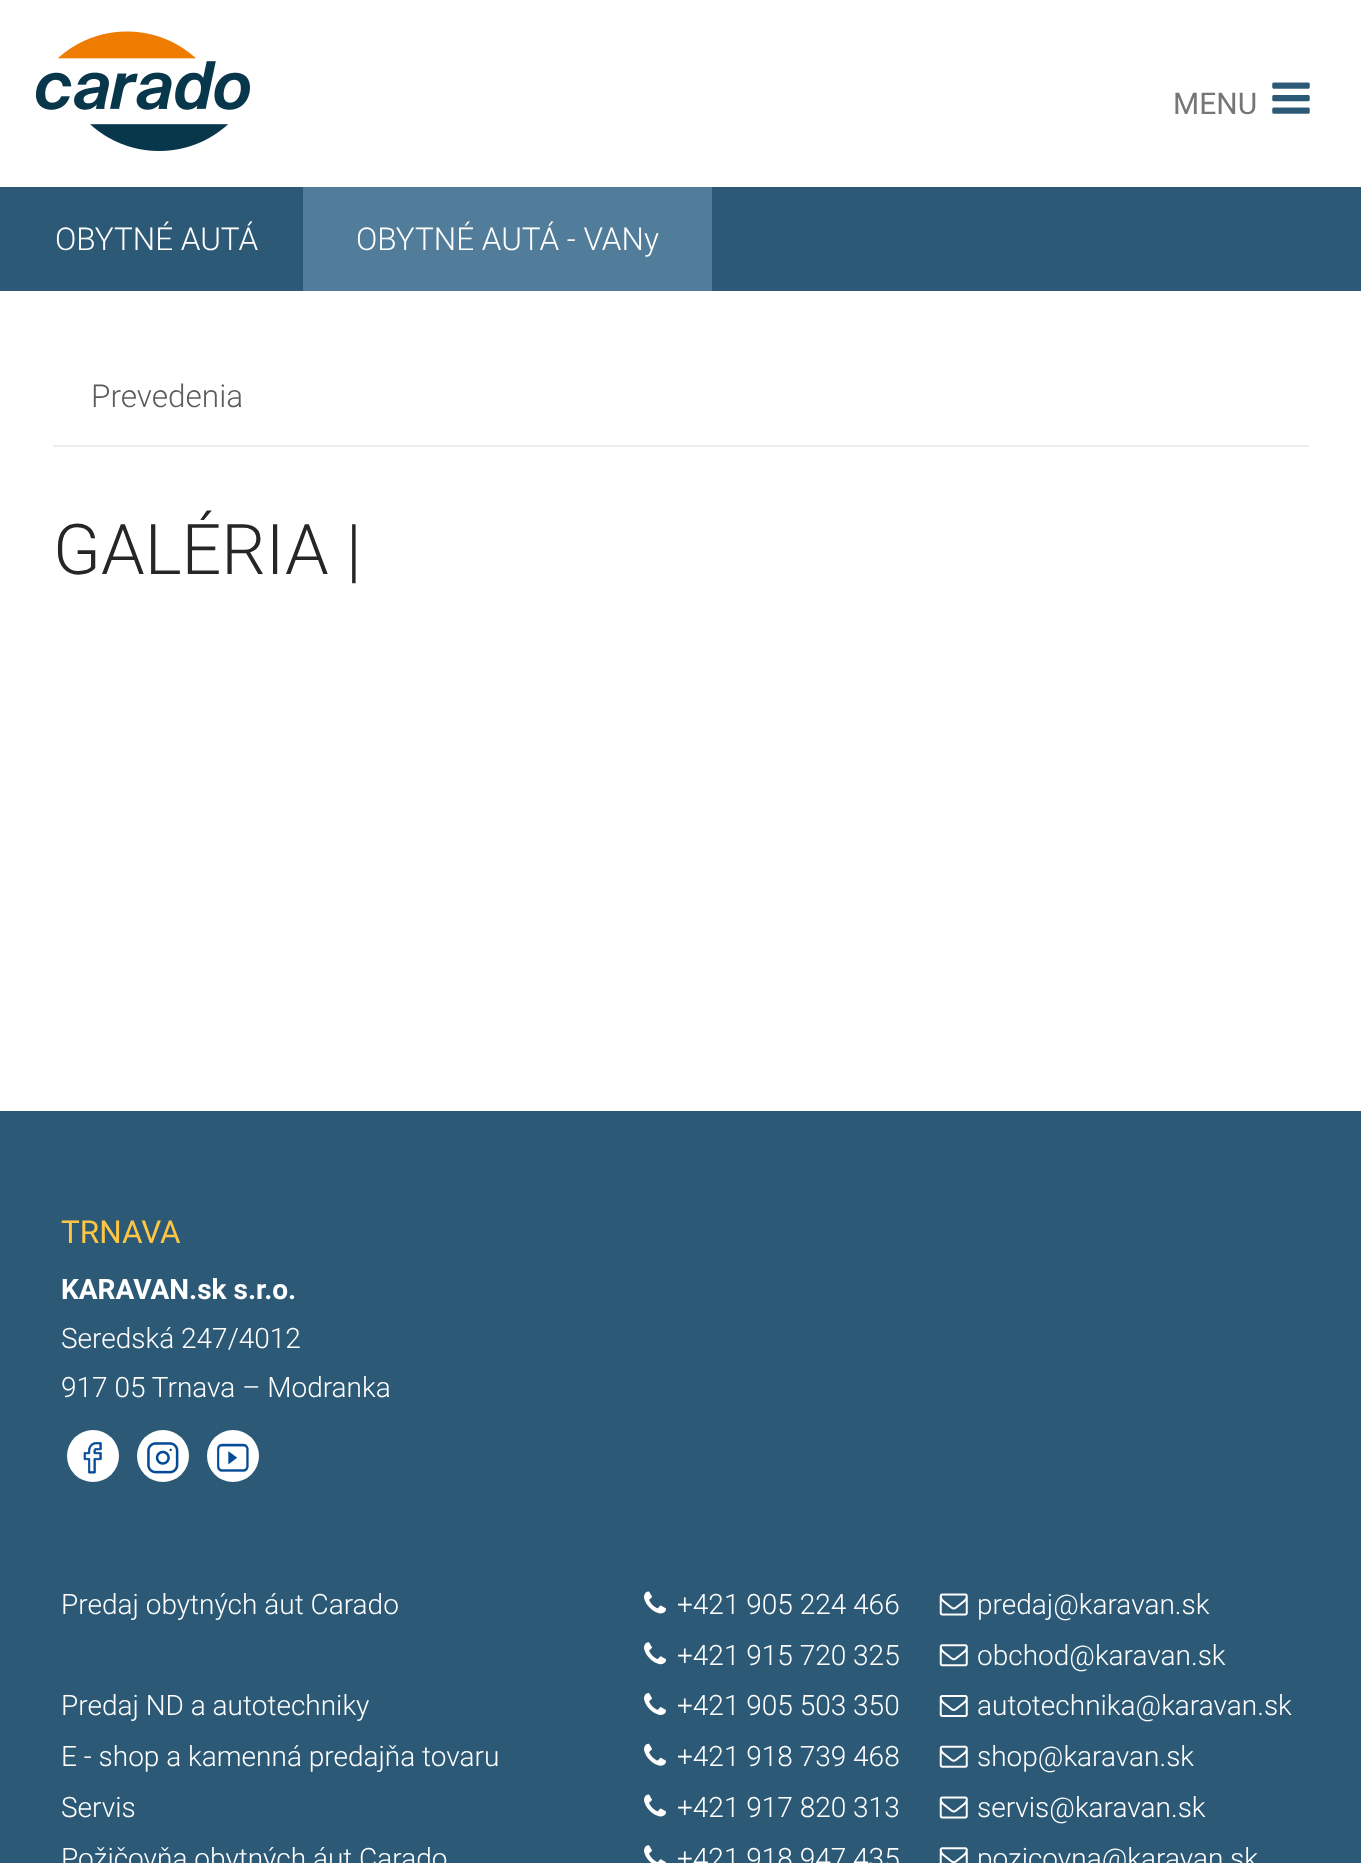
<!DOCTYPE html>
<meta charset="utf-8">
<style>body { margin: 0 } canvas { display: block }</style>
<canvas id="canvas" width="1361" height="1863"></canvas>
<img id="img1" src="images/1.png" hidden>
<img id="img2" src="images/2.png" hidden>
<img id="img3" src="images/3.png" hidden>
<img id="img4" src="images/4.png" hidden>
<img id="img5" src="images/5.png" hidden>
<img id="img6" src="images/6.png" hidden>
<img id="img7" src="images/7.png" hidden>
<img id="img8" src="images/8.png" hidden>
<img id="img9" src="images/9.png" hidden>
<img id="img10" src="images/10.png" hidden>
<img id="img11" src="images/11.png" hidden>
<img id="img12" src="images/12.png" hidden>
<img id="img13" src="images/13.png" hidden>
<img id="img14" src="images/14.png" hidden>
<img id="img15" src="images/15.png" hidden>
<script>
window.onload = function () {
    const canvas = document.getElementById('canvas');
    const context = canvas.getContext('2d');
    context.miterLimit = 4;
    context.fontKerning = 'normal';

    context.fillStyle = 'rgb(255, 255, 255)';
    context.fillRect(0, 0, 1361, 1863);
    context.drawImage(document.getElementById('img1'), 35, 31, 215, 120);
    context.drawImage(document.getElementById('img2'), 1272, 82, 38, 32);
    context.fillStyle = 'rgb(44, 89, 117)';
    context.fillRect(0, 187, 1361, 104);
    context.fillStyle = 'rgb(81, 125, 154)';
    context.fillRect(303, 187, 409, 104);
    context.fillStyle = 'rgb(237, 237, 237)';
    context.fillRect(53, 445, 1256, 2);
    context.fillStyle = 'rgb(44, 89, 117)';
    context.fillRect(0, 1111, 1361, 752);
    context.fillStyle = 'rgb(255, 255, 255)';
    context.beginPath();
    context.arc(93, 1456, 26, 0, 2 * Math.PI);
    context.fill();
    context.drawImage(document.getElementById('img3'), 83, 1442, 19, 32);
    context.beginPath();
    context.arc(163, 1456, 26, 0, 2 * Math.PI);
    context.fill();
    context.drawImage(document.getElementById('img4'), 147, 1442, 32, 32);
    context.beginPath();
    context.arc(233, 1456, 26, 0, 2 * Math.PI);
    context.fill();
    context.drawImage(document.getElementById('img5'), 217, 1443, 32, 29);
    context.drawImage(document.getElementById('img6'), 644, 1591, 22, 23);
    context.drawImage(document.getElementById('img7'), 939, 1593, 29, 23);
    context.drawImage(document.getElementById('img8'), 644, 1642, 22, 23);
    context.drawImage(document.getElementById('img9'), 939, 1644, 29, 23);
    context.drawImage(document.getElementById('img10'), 644, 1693, 22, 22);
    context.drawImage(document.getElementById('img11'), 939, 1695, 29, 22);
    context.drawImage(document.getElementById('img12'), 644, 1743, 22, 23);
    context.drawImage(document.getElementById('img13'), 939, 1745, 29, 23);
    context.drawImage(document.getElementById('img6'), 644, 1794, 22, 23);
    context.drawImage(document.getElementById('img7'), 939, 1796, 29, 23);
    context.drawImage(document.getElementById('img14'), 644, 1845, 22, 18);
    context.drawImage(document.getElementById('img15'), 939, 1847, 29, 16);
    context.font = '30px Roboto';
    context.fillStyle = 'rgb(118, 118, 118)';
    context.fillText('MENU', 1173, 114);
    context.font = '300 31.5px Roboto';
    context.fillStyle = 'rgb(255, 255, 255)';
    context.fillText('OBYTNÉ AUTÁ', 55, 250);
    context.fillText('OBYTNÉ AUTÁ - VANy', 356, 250);
    context.fillStyle = 'rgb(92, 92, 92)';
    context.fillText('Prevedenia', 91, 407);
    context.font = '300 70px Roboto';
    context.fillStyle = 'rgb(38, 38, 38)';
    context.fillText('GALÉRIA |', 53, 574);
    context.font = '31.5px Roboto';
    context.fillStyle = 'rgb(254, 198, 68)';
    context.fillText('TRNAVA', 61, 1243);
    context.font = 'bold 28px Roboto';
    context.fillStyle = 'rgb(255, 255, 255)';
    context.fillText('KARAVAN.sk s.r.o.', 61, 1299);
    context.font = '300 28px Roboto';
    context.fillText('Seredská 247/4012', 61, 1348);
    context.fillText('917 05 Trnava – Modranka', 61, 1397);
    context.fillText('Predaj obytných áut Carado', 61, 1614);
    context.fillText('+421 905 224 466', 677, 1614);
    context.fillText('predaj@karavan.sk', 977, 1614);
    context.fillText('+421 915 720 325', 677, 1665);
    context.fillText('obchod@karavan.sk', 977, 1665);
    context.fillText('Predaj ND a autotechniky', 61, 1715);
    context.fillText('+421 905 503 350', 677, 1715);
    context.fillText('autotechnika@karavan.sk', 977, 1715);
    context.fillText('E - shop a kamenná predajňa tovaru', 61, 1766);
    context.fillText('+421 918 739 468', 677, 1766);
    context.fillText('shop@karavan.sk', 977, 1766);
    context.fillText('Servis', 61, 1817);
    context.fillText('+421 917 820 313', 677, 1817);
    context.fillText('servis@karavan.sk', 977, 1817);
    context.fillText('Požičovňa obytných áut Carado', 61, 1868);
    context.fillText('+421 918 947 435', 677, 1868);
    context.fillText('pozicovna@karavan.sk', 977, 1868);
};
</script>
